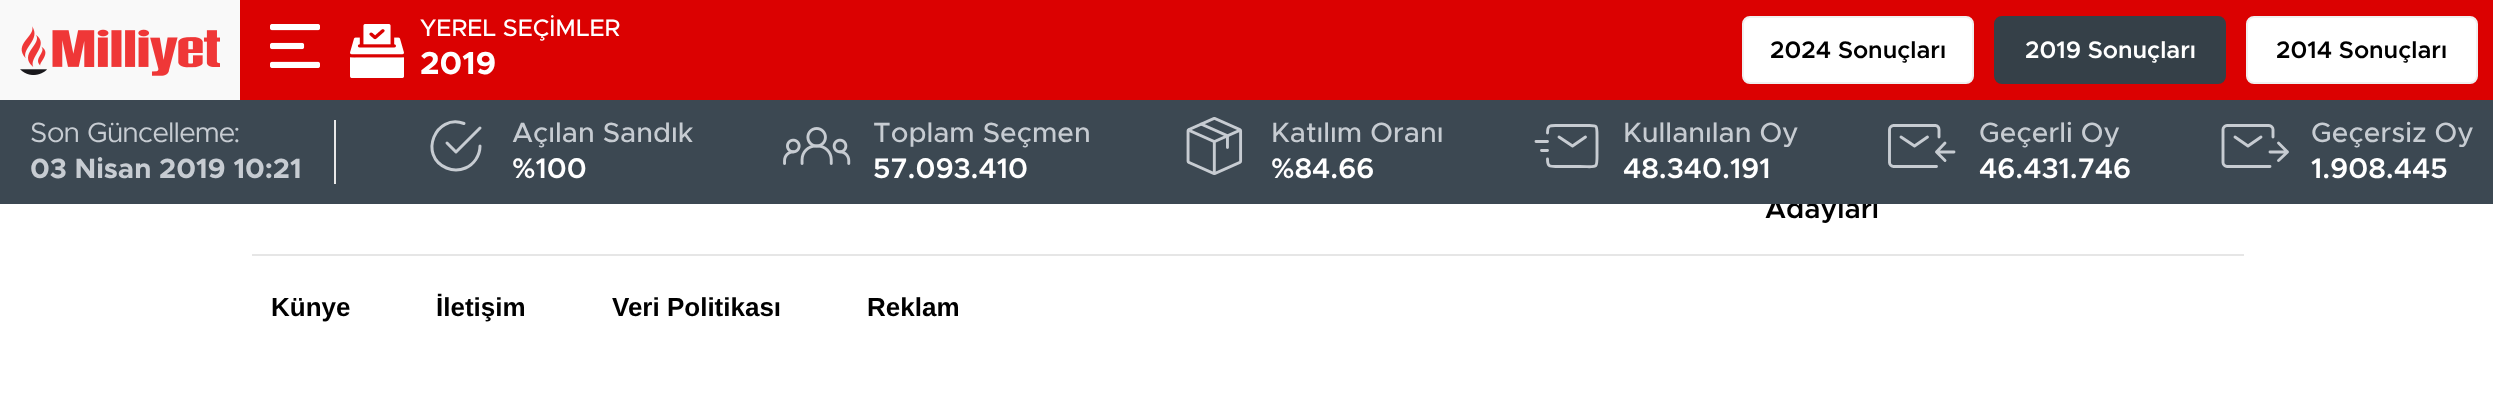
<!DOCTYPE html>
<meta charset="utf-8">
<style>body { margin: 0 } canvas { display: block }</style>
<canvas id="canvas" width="2493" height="398"></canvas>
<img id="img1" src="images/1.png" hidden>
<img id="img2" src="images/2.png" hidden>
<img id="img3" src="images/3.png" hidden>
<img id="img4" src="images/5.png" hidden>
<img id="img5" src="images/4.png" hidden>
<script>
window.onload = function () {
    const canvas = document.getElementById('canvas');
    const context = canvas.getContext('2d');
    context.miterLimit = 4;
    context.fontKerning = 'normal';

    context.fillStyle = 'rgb(255, 255, 255)';
    context.fillRect(0, 0, 2493, 398);
    context.fillStyle = 'rgb(219, 1, 1)';
    context.fillRect(240, 0, 2253, 100);
    context.fillStyle = 'rgb(249, 249, 249)';
    context.fillRect(0, 0, 240, 100);
    context.drawImage(document.getElementById('img1'), 20, 26, 200, 50);
    context.drawImage(document.getElementById('img2'), 270, 24, 50, 44);
    context.drawImage(document.getElementById('img3'), 350, 24, 54, 54);
    context.fillStyle = 'rgb(255, 255, 255)';
    context.beginPath();
    context.roundRect(1743, 17, 230, 66, 7);
    context.fill();
    context.strokeStyle = 'rgb(240, 240, 240)';
    context.lineWidth = 2;
    context.stroke();
    context.fillStyle = 'rgb(53, 64, 72)';
    context.beginPath();
    context.roundRect(1995, 17, 230, 66, 7);
    context.fill();
    context.strokeStyle = 'rgb(53, 64, 72)';
    context.stroke();
    context.fillStyle = 'rgb(255, 255, 255)';
    context.beginPath();
    context.roundRect(2247, 17, 230, 66, 7);
    context.fill();
    context.strokeStyle = 'rgb(240, 240, 240)';
    context.stroke();
    context.fillStyle = 'rgb(230, 230, 230)';
    context.fillRect(252, 254, 1992, 2);
    context.font = '500 24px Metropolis';
    context.fillStyle = 'rgb(255, 255, 255)';
    context.fillText('YEREL SEÇİMLER', 420, 36);
    context.font = 'bold 32px Metropolis';
    context.fillText('2019', 420, 74);
    context.font = '600 24px Metropolis';
    context.fillStyle = 'rgb(0, 0, 0)';
    context.fillText('2024 Sonuçları', 1770, 58);
    context.fillStyle = 'rgb(255, 255, 255)';
    context.fillText('2019 Sonuçları', 2025, 58);
    context.fillStyle = 'rgb(0, 0, 0)';
    context.fillText('2014 Sonuçları', 2276, 58);
    context.font = '600 28px Metropolis';
    context.fillText('Adayları', 1765, 218);
    context.fillStyle = 'rgb(60, 72, 82)';
    context.fillRect(0, 100, 2493, 104);
    context.font = '600 28.5px Metropolis';
    context.fillStyle = 'rgb(255, 255, 255)';
    context.fillText('1.908.445', 2311, 178);
    context.font = '500 28px Metropolis';
    context.fillStyle = 'rgb(199, 204, 210)';
    context.fillText('Geçersiz Oy', 2311, 142);
    context.beginPath();
    context.moveTo(2235, 137);
    context.lineTo(2248, 146);
    context.lineTo(2261, 137);
    context.strokeStyle = 'rgb(199, 204, 210)';
    context.lineWidth = 2.9;
    context.lineCap = 'round';
    context.lineJoin = 'round';
    context.stroke();
    context.beginPath();
    context.moveTo(2270, 166.5);
    context.lineTo(2227, 166.5);
    context.bezierCurveTo(2225, 166.5, 2223, 164.5, 2223, 162.5);
    context.lineTo(2223, 129.5);
    context.bezierCurveTo(2223, 127.5, 2225, 125.5, 2227, 125.5);
    context.lineTo(2269, 125.5);
    context.bezierCurveTo(2271, 125.5, 2273, 127.5, 2273, 129.5);
    context.lineTo(2273, 137);
    context.lineJoin = 'miter';
    context.stroke();
    context.beginPath();
    context.moveTo(2270, 152);
    context.lineTo(2287.5, 152);
    context.moveTo(2287.5, 152);
    context.lineTo(2278.5, 143);
    context.moveTo(2287.5, 152);
    context.lineTo(2278.5, 160.5);
    context.lineJoin = 'round';
    context.stroke();
    context.font = '600 28.5px Metropolis';
    context.fillStyle = 'rgb(255, 255, 255)';
    context.fillText('46.431.746', 1979, 178);
    context.font = '500 28px Metropolis';
    context.fillStyle = 'rgb(199, 204, 210)';
    context.fillText('Geçerli Oy', 1979, 142);
    context.beginPath();
    context.moveTo(1901, 137);
    context.lineTo(1914.5, 146);
    context.lineTo(1927.5, 137);
    context.stroke();
    context.beginPath();
    context.moveTo(1936.5, 166.5);
    context.lineTo(1893.5, 166.5);
    context.bezierCurveTo(1891.5, 166.5, 1889.5, 164.5, 1889.5, 162.5);
    context.lineTo(1889.5, 129.5);
    context.bezierCurveTo(1889.5, 127.5, 1891.5, 125.5, 1893.5, 125.5);
    context.lineTo(1935.5, 125.5);
    context.bezierCurveTo(1937.5, 125.5, 1939, 127.5, 1939, 129.5);
    context.lineTo(1939, 137);
    context.lineJoin = 'miter';
    context.stroke();
    context.beginPath();
    context.moveTo(1954, 152);
    context.lineTo(1936.5, 152);
    context.moveTo(1936.5, 152);
    context.lineTo(1945, 143);
    context.moveTo(1936.5, 152);
    context.lineTo(1945, 160.5);
    context.lineJoin = 'round';
    context.stroke();
    context.font = '600 28.5px Metropolis';
    context.fillStyle = 'rgb(255, 255, 255)';
    context.fillText('48.340.191', 1623, 178);
    context.font = '500 28px Metropolis';
    context.fillStyle = 'rgb(199, 204, 210)';
    context.fillText('Kullanılan Oy', 1623, 142);
    context.beginPath();
    context.moveTo(1559, 137);
    context.lineTo(1572.5, 146);
    context.lineTo(1585.5, 137);
    context.moveTo(1541.5, 150.5);
    context.lineTo(1547.5, 150.5);
    context.moveTo(1536, 141.5);
    context.lineTo(1547.5, 141.5);
    context.stroke();
    context.beginPath();
    context.moveTo(1547.5, 133);
    context.bezierCurveTo(1547.5, 124.5, 1550, 125.5, 1558.5, 125.5);
    context.lineTo(1586.5, 125.5);
    context.bezierCurveTo(1597, 125.5, 1597, 124.5, 1597, 135);
    context.lineTo(1597, 151.5);
    context.bezierCurveTo(1597, 170, 1598.5, 166.5, 1579.5, 166.5);
    context.lineTo(1558.5, 166.5);
    context.bezierCurveTo(1550, 166.5, 1547.5, 167.5, 1547.5, 159);
    context.lineJoin = 'miter';
    context.stroke();
    context.font = '600 28.5px Metropolis';
    context.fillStyle = 'rgb(255, 255, 255)';
    context.fillText('%84.66', 1271, 178);
    context.font = '500 28px Metropolis';
    context.fillStyle = 'rgb(199, 204, 210)';
    context.fillText('Katılım Oranı', 1271, 142);
    context.drawImage(document.getElementById('img4'), 1186, 117, 57, 58);
    context.font = '600 28.5px Metropolis';
    context.fillStyle = 'rgb(255, 255, 255)';
    context.fillText('57.093.410', 873, 178);
    context.font = '500 28px Metropolis';
    context.fillStyle = 'rgb(199, 204, 210)';
    context.fillText('Toplam Seçmen', 873, 142);
    context.drawImage(document.getElementById('img5'), 783, 127, 68, 38);
    context.font = '600 28.5px Metropolis';
    context.fillStyle = 'rgb(255, 255, 255)';
    context.fillText('%100', 512, 178);
    context.font = '500 28px Metropolis';
    context.fillStyle = 'rgb(199, 204, 210)';
    context.fillText('Açılan Sandık', 512, 142);
    context.beginPath();
    context.moveTo(447, 143);
    context.lineTo(456, 152);
    context.lineTo(480, 128);
    context.moveTo(480, 146);
    context.bezierCurveTo(480, 155.5, 474, 164.5, 465.5, 168);
    context.bezierCurveTo(459.5, 170.5, 452.5, 170.5, 446.5, 168);
    context.bezierCurveTo(418, 156, 435.5, 113, 464, 123.5);
    context.lineWidth = 3;
    context.lineJoin = 'round';
    context.stroke();
    context.font = 'bold 28px Metropolis';
    context.fillText('03 Nisan 2019 10:21', 30, 178);
    context.font = '28px Metropolis';
    context.fillText('Son Güncelleme:', 30, 142);
    context.fillStyle = 'rgb(232, 232, 232)';
    context.fillRect(334, 120, 2, 64);
    context.font = 'bold 26px Liberation Sans';
    context.fillStyle = 'rgb(0, 0, 0)';
    context.fillText('Künye', 271, 316);
    context.fillText('İletişim', 436, 316);
    context.fillText('Veri Politikası', 612, 316);
    context.fillText('Reklam', 867, 316);
};
</script>
